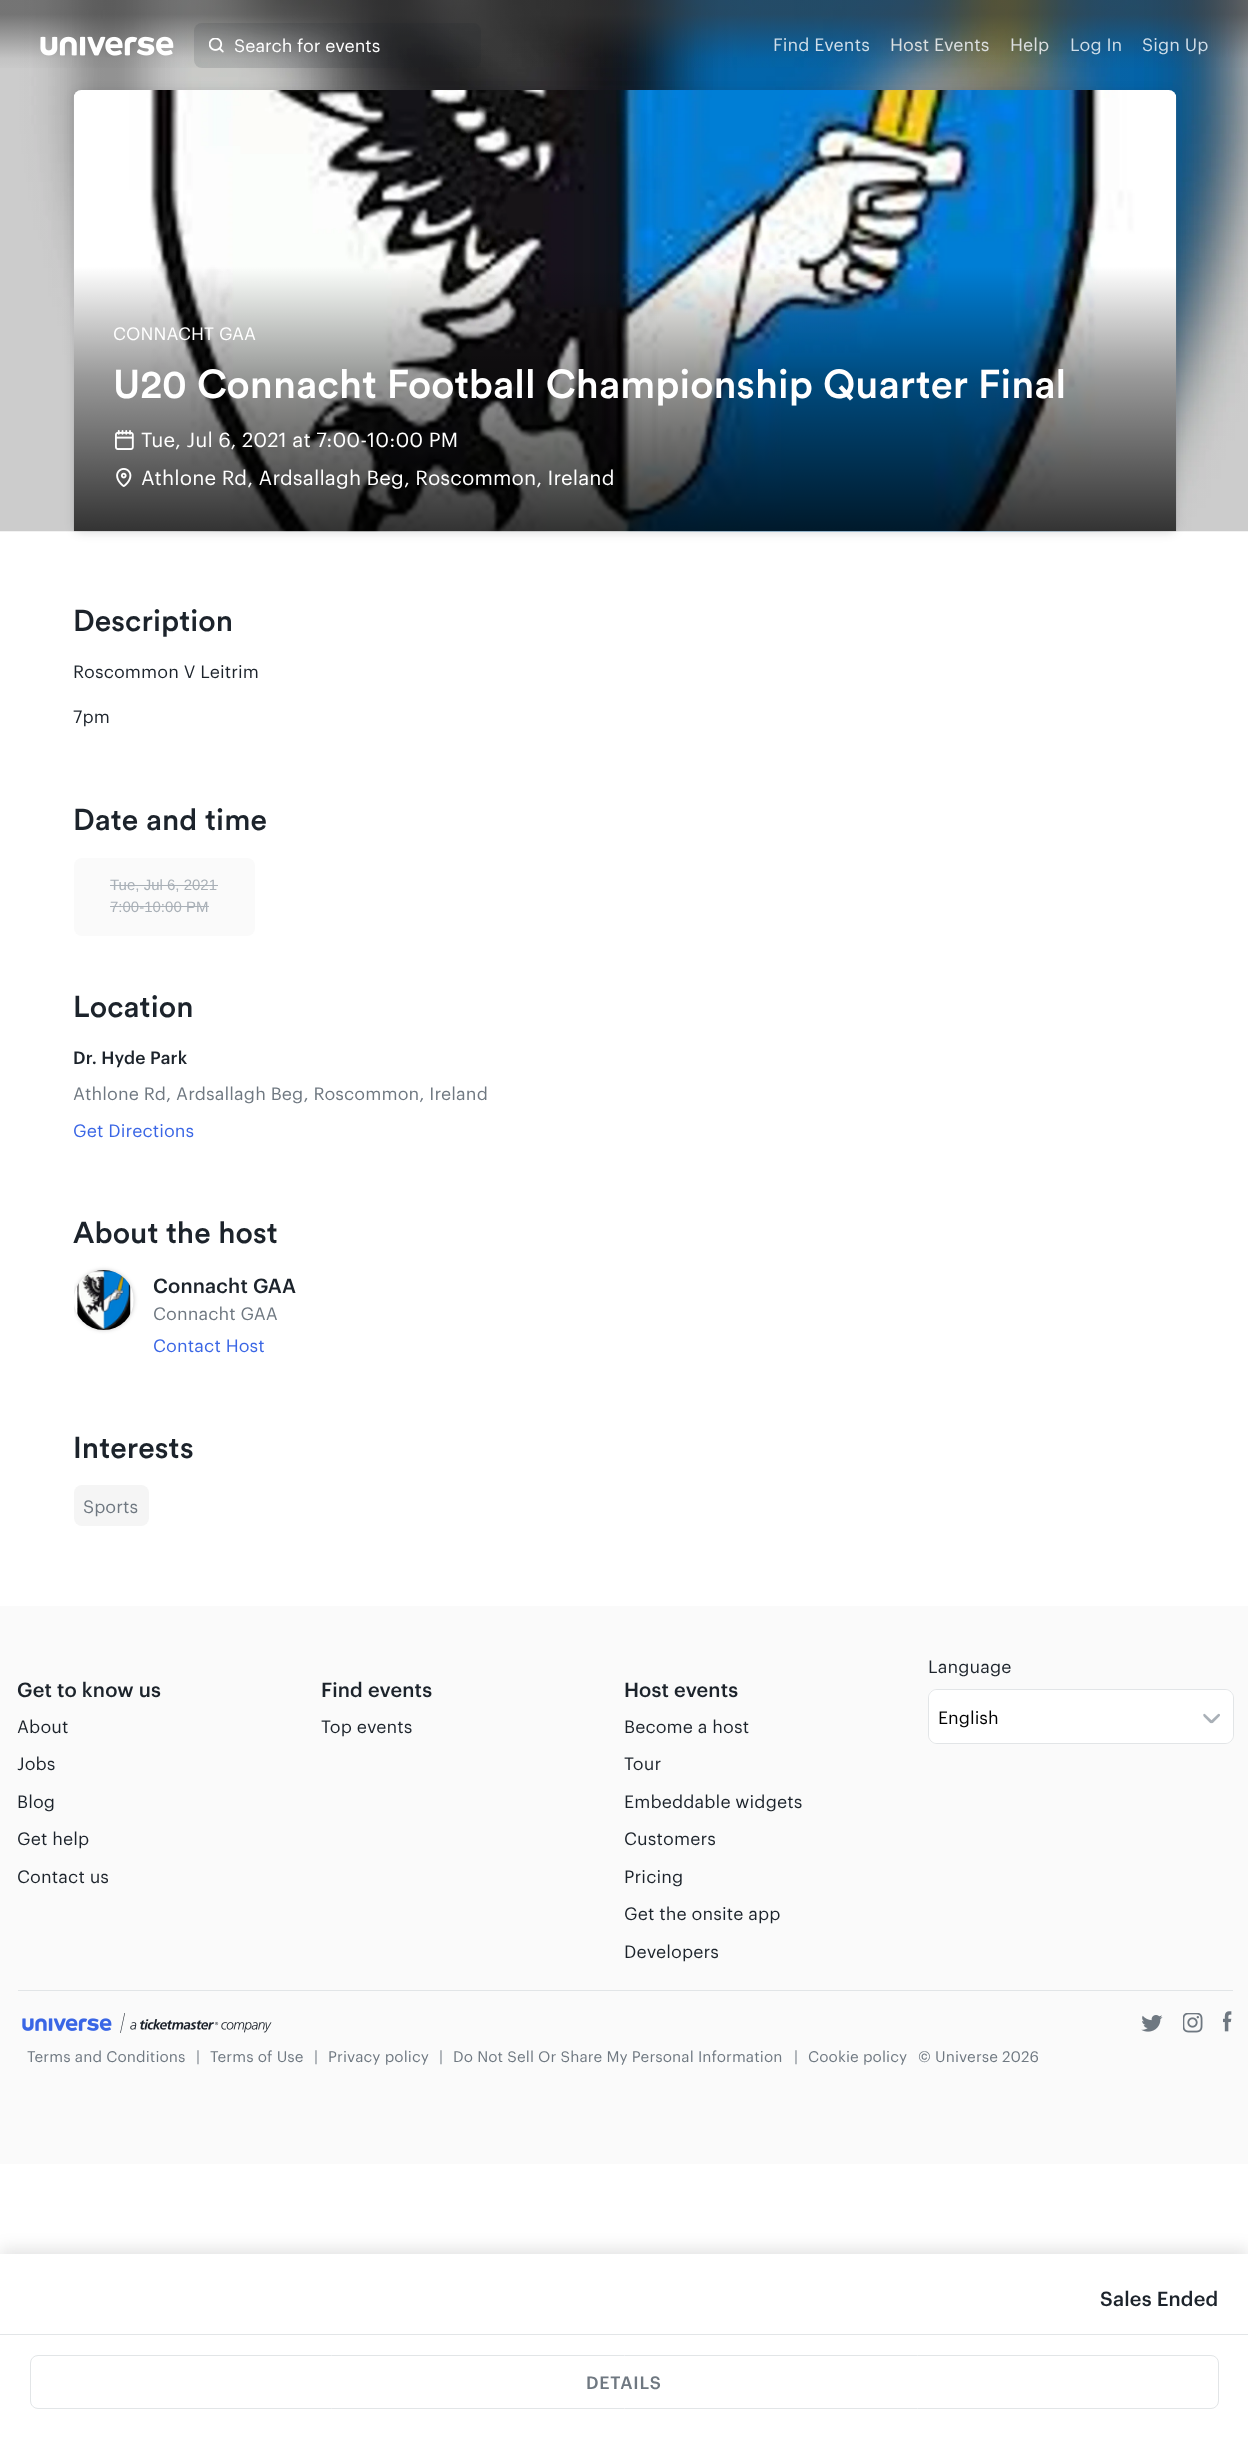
<!DOCTYPE html>
<meta charset="utf-8">
<style>body { margin: 0 } canvas { display: block }</style>
<canvas id="canvas" width="1248" height="2438"></canvas>
<img id="img1" src="images/3.png" hidden>
<img id="img2" src="images/1.png" hidden>
<img id="img3" src="images/2.png" hidden>
<img id="img4" src="images/4.png" hidden>
<img id="img5" src="images/5.png" hidden>
<img id="img6" src="images/6.png" hidden>
<img id="img7" src="images/7.png" hidden>
<img id="img8" src="images/8.png" hidden>
<img id="img9" src="images/9.png" hidden>
<img id="img10" src="images/10.png" hidden>
<img id="img11" src="images/11.png" hidden>
<img id="img12" src="images/12.png" hidden>
<script>
window.onload = function () {
    const canvas = document.getElementById('canvas');
    const context = canvas.getContext('2d');
    context.miterLimit = 4;
    context.fontKerning = 'normal';
    let gradient;

    context.fillStyle = 'rgb(255, 255, 255)';
    context.fillRect(0, 0, 1248, 2438);
    context.drawImage(document.getElementById('img1'), 0, 0, 1248, 532);
    gradient = context.createLinearGradient(624, 0, 624, 90);
    gradient.addColorStop(0.16, 'rgba(58, 58, 58, 0.6)');
    gradient.addColorStop(0.65, 'rgba(58, 58, 58, 0.06)');
    gradient.addColorStop(0.81, 'rgba(58, 58, 58, 0)');
    context.fillStyle = gradient;
    context.fillRect(0, 0, 1248, 68);
    context.drawImage(document.getElementById('img2'), 40, 36, 134, 20);
    context.fillStyle = 'rgba(28, 35, 43, 0.12)';
    context.beginPath();
    context.roundRect(194, 23, 287, 45, 8);
    context.fill();
    context.drawImage(document.getElementById('img3'), 209, 38, 15, 15);
    context.fillStyle = 'rgba(28, 35, 43, 0.15)';
    context.filter = 'blur(5px)';
    context.beginPath();
    context.roundRect(74, 91, 1102, 442, 8);
    context.fill();
    context.filter = 'none';
    context.drawImage(document.getElementById('img4'), 73, 90, 1104, 442);
    context.drawImage(document.getElementById('img5'), 115, 430, 19, 20);
    context.drawImage(document.getElementById('img6'), 116, 468, 16, 19);
    context.fillStyle = 'rgb(250, 250, 250)';
    context.beginPath();
    context.roundRect(74, 858, 181, 78, 8);
    context.fill();
    context.fillStyle = 'rgb(169, 176, 183)';
    context.fillRect(110, 885, 108, 1);
    context.fillRect(110, 906, 99, 1);
    context.save();
    context.beginPath();
    context.rect(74, 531, 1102, 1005);
    context.clip();
    context.fillStyle = 'rgba(0, 0, 0, 0.2)';
    context.filter = 'blur(2px)';
    context.beginPath();
    context.roundRect(74, 1270, 60, 60, 30);
    context.fill();
    context.filter = 'none';
    context.restore();
    context.drawImage(document.getElementById('img7'), 74, 1270, 60, 60);
    context.fillStyle = 'rgb(245, 245, 245)';
    context.beginPath();
    context.roundRect(74, 1485, 75, 41, 8);
    context.fill();
    context.fillStyle = 'rgba(0, 0, 0, 0.1)';
    context.filter = 'blur(8px)';
    context.beginPath();
    context.rect(0, 2248, 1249, 185);
    context.fill();
    context.filter = 'none';
    context.fillStyle = 'rgb(255, 255, 255)';
    context.fillRect(0, 2254, 1248, 184);
    context.fillStyle = 'rgb(226, 229, 231)';
    context.fillRect(0, 2334, 1248, 1);
    context.beginPath();
    context.roundRect(30.5, 2355.5, 1188, 53, 7.5);
    context.strokeStyle = 'rgb(226, 229, 231)';
    context.stroke();
    context.fillStyle = 'rgb(250, 250, 250)';
    context.fillRect(0, 1606, 1248, 558);
    context.beginPath();
    context.roundRect(928.5, 1689.5, 305, 54, 8.5);
    context.stroke();
    context.fillStyle = 'rgb(255, 255, 255)';
    context.beginPath();
    context.roundRect(929, 1690, 304, 53, 8);
    context.fill();
    context.drawImage(document.getElementById('img8'), 1203, 1713, 17, 11);
    context.fillStyle = 'rgb(226, 229, 231)';
    context.fillRect(18, 1990, 1215, 1);
    context.drawImage(document.getElementById('img9'), 22, 2013, 250, 20);
    context.drawImage(document.getElementById('img10'), 1141, 2015, 22, 17);
    context.drawImage(document.getElementById('img11'), 1183, 2013, 20, 20);
    context.drawImage(document.getElementById('img12'), 1223, 2011, 9, 21);
    context.font = '17.5px Graphik';
    context.fillStyle = 'rgb(255, 255, 255)';
    context.fillText('Search for events', 234, 52);
    context.letterSpacing = '0.1px';
    context.fillStyle = 'rgb(208, 222, 233)';
    context.fillText('Find Events', 773, 51);
    context.fillStyle = 'rgb(220, 224, 225)';
    context.fillText('Host Events', 890, 51);
    context.fillText('Help', 1010, 51);
    context.fillStyle = 'rgb(208, 222, 233)';
    context.fillText('Log In', 1070, 51);
    context.fillText('Sign Up', 1142, 51);
    context.fillStyle = 'rgb(255, 255, 255)';
    context.fillText('CONNACHT GAA', 113, 340);
    context.font = '500 40px Circular';
    context.fillText('U20 Connacht Football Championship Quarter Final', 113, 398);
    context.font = '20px Graphik';
    context.fillText('Tue, Jul 6, 2021 at 7:00-10:00 PM', 141, 447);
    context.fillText('Athlone Rd, Ardsallagh Beg, Roscommon, Ireland', 141, 485);
    context.font = '500 30px Circular';
    context.fillStyle = 'rgb(28, 35, 43)';
    context.fillText('Description', 73, 631);
    context.font = '17.5px Graphik';
    context.fillText('Roscommon V Leitrim', 73, 678);
    context.fillText('7pm', 73, 723);
    context.font = '500 30px Circular';
    context.fillText('Date and time', 73, 830);
    context.letterSpacing = '0px';
    context.font = '15px Liberation Sans';
    context.fillStyle = 'rgb(169, 176, 183)';
    context.fillText('Tue, Jul 6, 2021', 110, 890);
    context.fillText('7:00-10:00 PM', 110, 912);
    context.letterSpacing = '0.1px';
    context.font = '500 30px Circular';
    context.fillStyle = 'rgb(28, 35, 43)';
    context.fillText('Location', 73, 1017);
    context.font = '500 17.5px Graphik';
    context.fillText('Dr. Hyde Park', 73, 1064);
    context.font = '17.5px Graphik';
    context.fillStyle = 'rgb(111, 120, 129)';
    context.fillText('Athlone Rd, Ardsallagh Beg, Roscommon, Ireland', 73, 1100);
    context.fillStyle = 'rgb(58, 102, 229)';
    context.fillText('Get Directions', 73, 1137);
    context.font = '500 30px Circular';
    context.fillStyle = 'rgb(28, 35, 43)';
    context.fillText('About the host', 73, 1243);
    context.font = '500 20px Graphik';
    context.fillText('Connacht GAA', 153, 1293);
    context.font = '17.5px Graphik';
    context.fillStyle = 'rgb(111, 120, 129)';
    context.fillText('Connacht GAA', 153, 1320);
    context.fillStyle = 'rgb(58, 102, 229)';
    context.fillText('Contact Host', 153, 1352);
    context.font = '500 30px Circular';
    context.fillStyle = 'rgb(28, 35, 43)';
    context.fillText('Interests', 73, 1458);
    context.letterSpacing = '0px';
    context.font = '17.5px Graphik';
    context.fillStyle = 'rgb(111, 120, 129)';
    context.fillText('Sports', 83, 1513);
    context.letterSpacing = '0.1px';
    context.font = '500 20px Graphik';
    context.fillStyle = 'rgb(28, 35, 43)';
    context.fillText('Sales Ended', 1100, 2306);
    context.letterSpacing = '0.75px';
    context.font = '500 17.5px Graphik';
    context.fillStyle = 'rgb(111, 120, 129)';
    context.fillText('DETAILS', 586, 2389);
    context.letterSpacing = '0.1px';
    context.font = '500 20px Graphik';
    context.fillStyle = 'rgb(28, 35, 43)';
    context.fillText('Get to know us', 17, 1697);
    context.font = '17.5px Graphik';
    context.fillText('About', 17, 1733);
    context.fillText('Jobs', 17, 1770);
    context.fillText('Blog', 17, 1808);
    context.fillText('Get help', 17, 1845);
    context.fillText('Contact us', 17, 1883);
    context.font = '500 20px Graphik';
    context.fillText('Find events', 321, 1697);
    context.font = '17.5px Graphik';
    context.fillText('Top events', 321, 1733);
    context.font = '500 20px Graphik';
    context.fillText('Host events', 624, 1697);
    context.font = '17.5px Graphik';
    context.fillText('Become a host', 624, 1733);
    context.fillText('Tour', 624, 1770);
    context.fillText('Embeddable widgets', 624, 1808);
    context.fillText('Customers', 624, 1845);
    context.fillText('Pricing', 624, 1883);
    context.fillText('Get the onsite app', 624, 1920);
    context.fillText('Developers', 624, 1958);
    context.fillText('Language', 928, 1673);
    context.letterSpacing = '0px';
    context.fillStyle = 'rgb(0, 0, 0)';
    context.fillText('English', 938, 1724);
    context.letterSpacing = '0.1px';
    context.font = '15px Graphik';
    context.fillStyle = 'rgb(111, 120, 129)';
    context.fillText('Terms and Conditions', 27, 2062);
    context.fillText('|', 196, 2062);
    context.fillText('Terms of Use', 210, 2062);
    context.fillText('|', 314, 2062);
    context.fillText('Privacy policy', 328, 2062);
    context.fillText('|', 439, 2062);
    context.fillText('Do Not Sell Or Share My Personal Information', 453, 2062);
    context.fillText('|', 794, 2062);
    context.fillText('Cookie policy', 808, 2062);
    context.fillText('© Universe 2026', 918, 2062);
};
</script>
